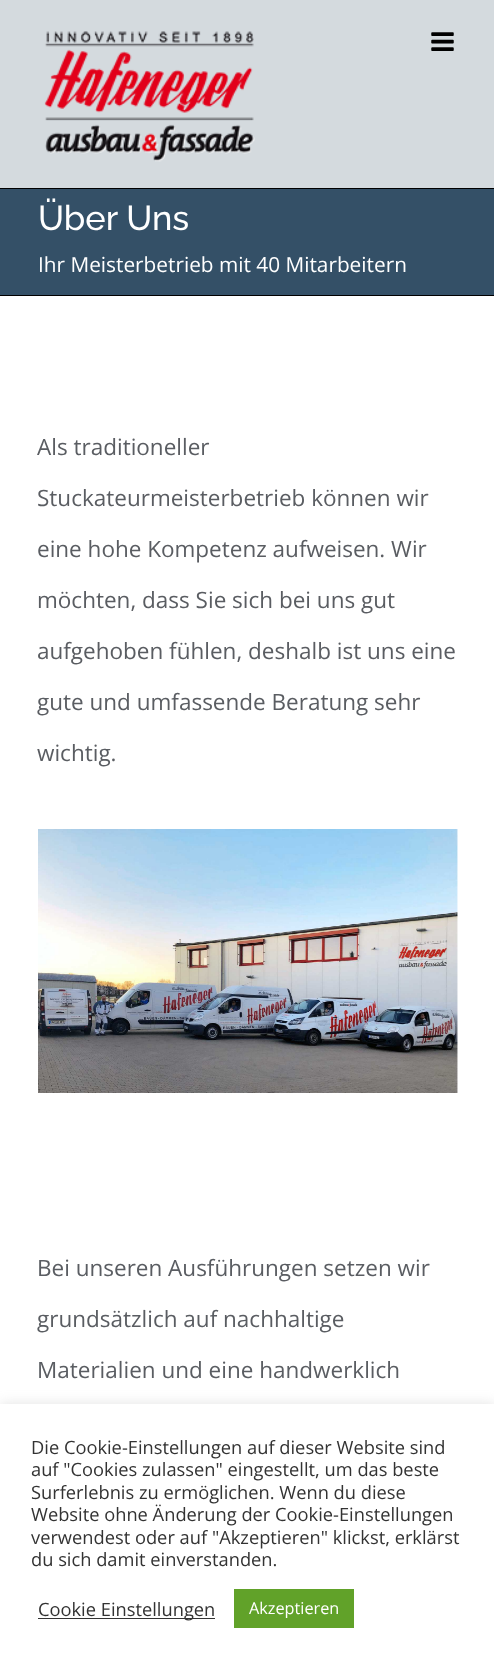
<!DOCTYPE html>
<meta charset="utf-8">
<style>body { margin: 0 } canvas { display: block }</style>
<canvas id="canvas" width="494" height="1664"></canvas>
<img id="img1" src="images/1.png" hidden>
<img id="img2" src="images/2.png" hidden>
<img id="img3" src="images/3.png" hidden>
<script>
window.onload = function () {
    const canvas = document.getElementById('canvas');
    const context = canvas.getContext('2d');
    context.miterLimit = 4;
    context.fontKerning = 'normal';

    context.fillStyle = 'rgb(255, 255, 255)';
    context.fillRect(0, 0, 494, 1664);
    context.fillStyle = 'rgb(212, 218, 222)';
    context.fillRect(0, 0, 494, 188);
    context.drawImage(document.getElementById('img1'), 44, 31, 211, 131);
    context.drawImage(document.getElementById('img2'), 431, 32, 23, 19);
    context.fillStyle = 'rgb(52, 80, 103)';
    context.fillRect(0, 189, 494, 106);
    context.fillStyle = 'rgb(0, 0, 0)';
    context.fillRect(0, 188, 494, 1);
    context.fillRect(0, 295, 494, 1);
    context.drawImage(document.getElementById('img3'), 38, 829, 420, 264);
    context.fillStyle = 'rgba(172, 171, 171, 0.3)';
    context.filter = 'blur(6px)';
    context.beginPath();
    context.rect(0, 1403, 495, 261);
    context.fill();
    context.filter = 'none';
    context.fillStyle = 'rgb(255, 255, 255)';
    context.fillRect(0, 1404, 494, 260);
    context.fillStyle = 'rgb(51, 51, 51)';
    context.fillRect(38, 1618, 177, 1);
    context.fillStyle = 'rgb(97, 162, 41)';
    context.fillRect(234, 1589, 120, 39);
    context.font = '100 34.5px Raleway';
    context.fillStyle = 'rgb(255, 255, 255)';
    context.fillText('Über Uns', 38, 230);
    context.font = '20.8px Open Sans';
    context.fillText('Ihr Meisterbetrieb mit 40 Mitarbeitern', 38, 272);
    context.font = '22.5px Open Sans';
    context.fillStyle = 'rgb(90, 93, 98)';
    context.fillText('Als traditioneller', 37, 455);
    context.fillText('Stuckateurmeisterbetrieb können wir', 37, 506);
    context.fillText('eine hohe Kompetenz aufweisen. Wir', 37, 557);
    context.fillText('möchten, dass Sie sich bei uns gut', 37, 608);
    context.fillText('aufgehoben fühlen, deshalb ist uns eine', 37, 659);
    context.fillText('gute und umfassende Beratung sehr', 37, 710);
    context.fillText('wichtig.', 37, 761);
    context.fillText('Bei unseren Ausführungen setzen wir', 37, 1276);
    context.fillText('grundsätzlich auf nachhaltige', 37, 1327);
    context.fillText('Materialien und eine handwerklich', 37, 1378);
    context.font = '18.3px Open Sans';
    context.fillStyle = 'rgb(51, 51, 51)';
    context.fillText('Die Cookie-Einstellungen auf dieser Website sind', 31, 1454);
    context.fillText('auf "Cookies zulassen" eingestellt, um das beste', 31, 1476);
    context.fillText('Surferlebnis zu ermöglichen. Wenn du diese', 31, 1499);
    context.fillText('Website ohne Änderung der Cookie-Einstellungen', 31, 1521);
    context.fillText('verwendest oder auf "Akzeptieren" klickst, erklärst', 31, 1544);
    context.fillText('du sich damit einverstanden.', 31, 1566);
    context.fillText('Cookie Einstellungen', 38, 1616);
    context.font = '16.25px Open Sans';
    context.fillStyle = 'rgb(255, 255, 255)';
    context.fillText('Akzeptieren', 249, 1614);
};
</script>
